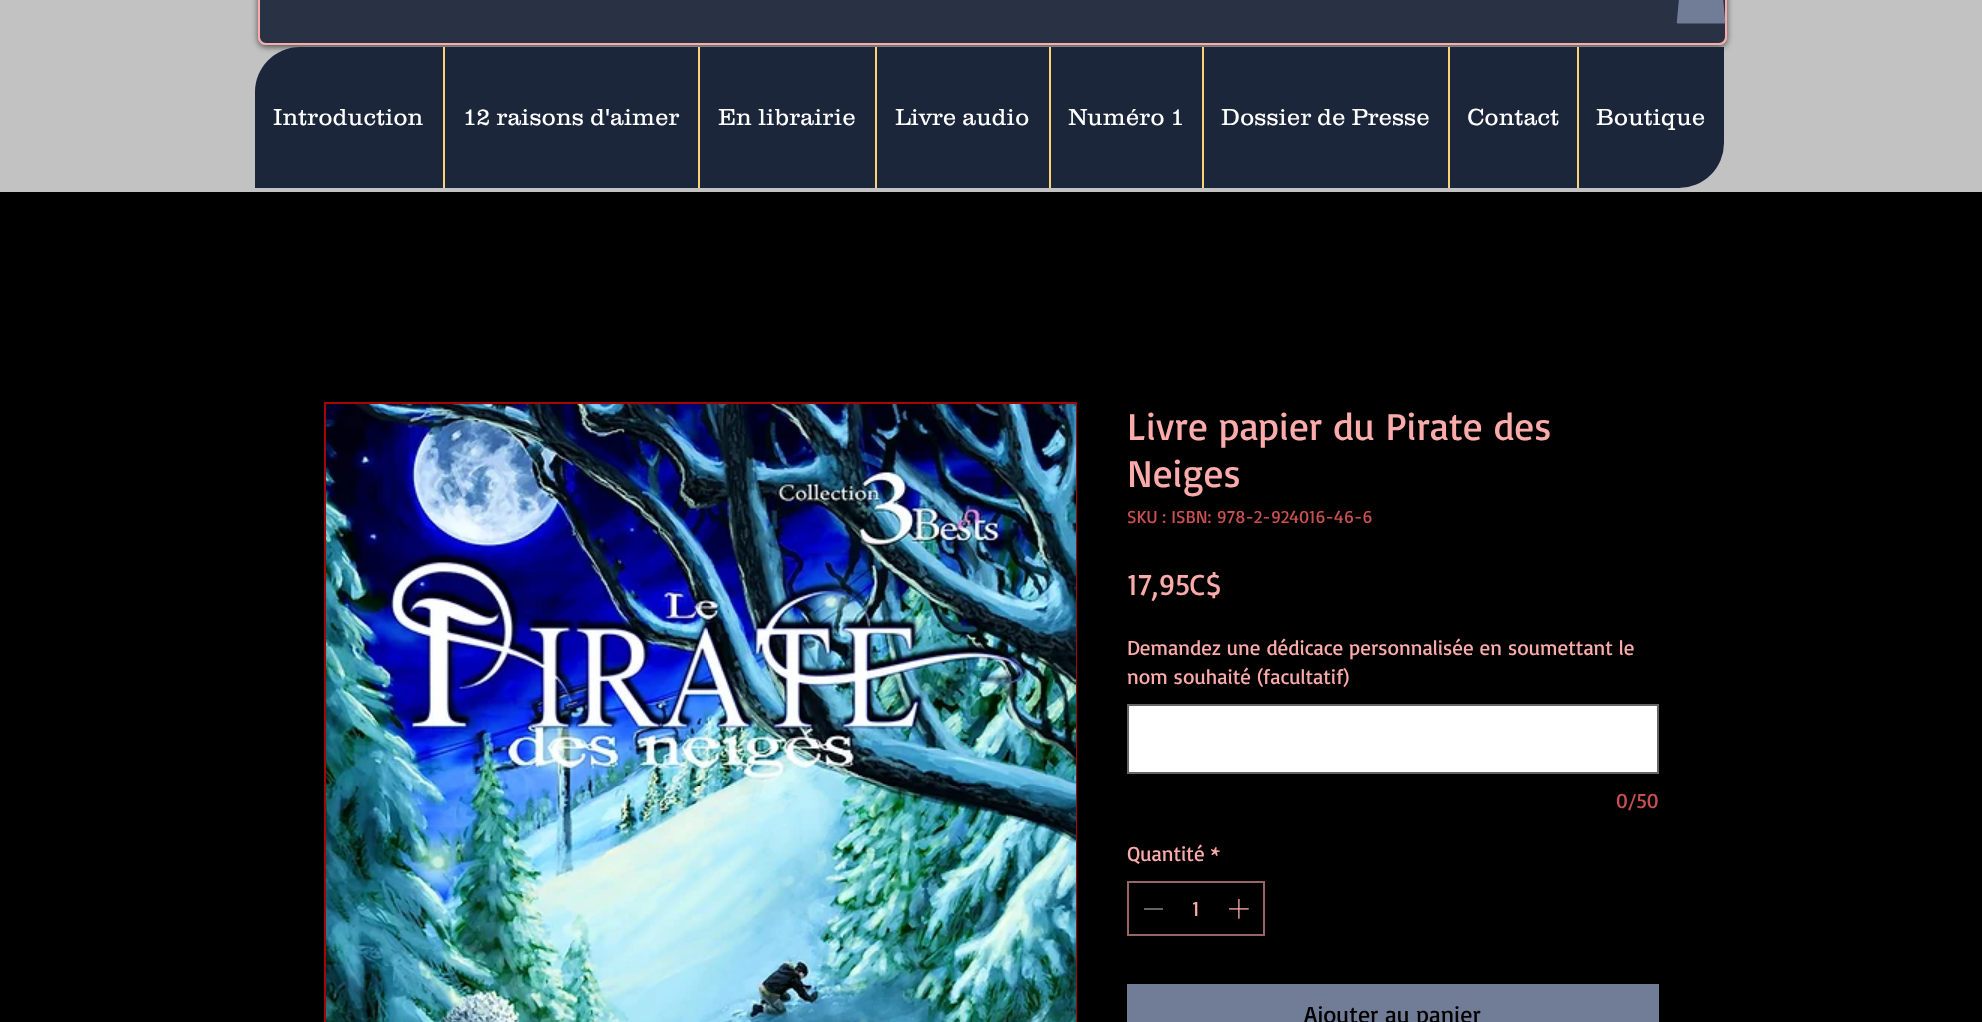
<!DOCTYPE html>
<meta charset="utf-8">
<style>body { margin: 0 } canvas { display: block }</style>
<canvas id="canvas" width="1982" height="1022"></canvas>
<img id="img1" src="images/1.png" hidden>
<img id="img2" src="images/2.png" hidden>
<img id="img3" src="images/3.png" hidden>
<script>
window.onload = function () {
    const canvas = document.getElementById('canvas');
    const context = canvas.getContext('2d');
    context.miterLimit = 4;
    context.fontKerning = 'normal';

    context.fillStyle = 'rgb(0, 0, 0)';
    context.fillRect(0, 0, 1982, 1022);
    context.fillStyle = 'rgb(194, 194, 194)';
    context.fillRect(0, 0, 1982, 192);
    context.save();
    context.beginPath();
    context.moveTo(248, 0);
    context.lineTo(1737, 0);
    context.lineTo(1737, 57);
    context.lineTo(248, 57);
    context.closePath();
    context.moveTo(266, -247);
    context.lineTo(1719, -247);
    context.bezierCurveTo(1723.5, -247, 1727, -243.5, 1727, -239);
    context.lineTo(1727, 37);
    context.bezierCurveTo(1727, 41.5, 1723.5, 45, 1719, 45);
    context.lineTo(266, 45);
    context.bezierCurveTo(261.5, 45, 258, 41.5, 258, 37);
    context.lineTo(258, -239);
    context.bezierCurveTo(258, -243.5, 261.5, -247, 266, -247);
    context.closePath();
    context.clip('evenodd');
    context.fillStyle = 'rgba(0, 0, 0, 0.6)';
    context.filter = 'blur(3px)';
    context.beginPath();
    context.roundRect(258, -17, 1469, 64, 8);
    context.fill();
    context.filter = 'none';
    context.restore();
    context.fillStyle = 'rgba(28, 38, 58, 0.92)';
    context.beginPath();
    context.roundRect(259, -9, 1467, 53, 7);
    context.fill();
    context.strokeStyle = 'rgb(252, 171, 171)';
    context.lineWidth = 2;
    context.stroke();
    context.drawImage(document.getElementById('img1'), 1676, 0, 50, 24);
    context.fillStyle = 'rgb(28, 38, 58)';
    context.beginPath();
    context.roundRect(255, 47, 1469, 141, [45, 0, 45, 0]);
    context.fill();
    context.fillStyle = 'rgb(252, 210, 114)';
    context.fillRect(443, 47, 2, 141);
    context.fillRect(698, 47, 2, 141);
    context.fillRect(875, 47, 2, 141);
    context.fillRect(1049, 47, 2, 141);
    context.fillRect(1202, 47, 2, 141);
    context.fillRect(1448, 47, 2, 141);
    context.fillRect(1577, 47, 2, 141);
    context.strokeStyle = 'rgb(164, 6, 6)';
    context.strokeRect(325, 403, 751, 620);
    context.drawImage(document.getElementById('img2'), 326, 404, 750, 618);
    context.fillStyle = 'rgb(255, 255, 255)';
    context.beginPath();
    context.rect(1128, 705, 530, 68);
    context.fill();
    context.strokeStyle = 'rgb(102, 102, 102)';
    context.stroke();
    context.strokeStyle = 'rgb(151, 103, 103)';
    context.strokeRect(1128, 882, 136, 53);
    context.fillStyle = 'rgb(100, 100, 100)';
    context.fillRect(1144, 908, 19, 2);
    context.drawImage(document.getElementById('img3'), 1229, 899, 20, 20);
    context.fillStyle = 'rgb(113, 125, 151)';
    context.fillRect(1127, 984, 532, 38);
    context.font = '300 24px "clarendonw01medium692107"';
    context.fillStyle = 'rgb(255, 255, 255)';
    context.fillText('Introduction', 273, 125);
    context.fillText('12 raisons d\'aimer', 463, 125);
    context.fillText('En librairie', 718, 125);
    context.fillText('Livre audio', 895, 125);
    context.fillText('Numéro 1', 1068, 125);
    context.fillText('Dossier de Presse', 1221, 125);
    context.fillText('Contact', 1467, 125);
    context.fillText('Boutique', 1596, 125);
    context.font = '39px Basic';
    context.fillStyle = 'rgb(252, 171, 171)';
    context.fillText('Livre papier du Pirate des', 1127, 440);
    context.fillText('Neiges', 1127, 487);
    context.font = '18px Basic';
    context.fillStyle = 'rgb(200, 80, 80)';
    context.fillText('SKU : ISBN: 978-2-924016-46-6', 1127, 523);
    context.font = '30px Basic';
    context.fillStyle = 'rgb(252, 171, 171)';
    context.fillText('17,95C$', 1127, 595);
    context.font = '21px Basic';
    context.fillText('Demandez une dédicace personnalisée en soumettant le', 1127, 655);
    context.fillText('nom souhaité (facultatif)', 1127, 684);
    context.fillStyle = 'rgb(200, 80, 80)';
    context.fillText('0/50', 1616, 808);
    context.fillStyle = 'rgb(252, 171, 171)';
    context.fillText('Quantité *', 1127, 861);
    context.fillText('1', 1192, 916);
    context.font = '24px Basic';
    context.fillStyle = 'rgb(0, 0, 0)';
    context.fillText('Ajouter au panier', 1304, 1023);
};
</script>
